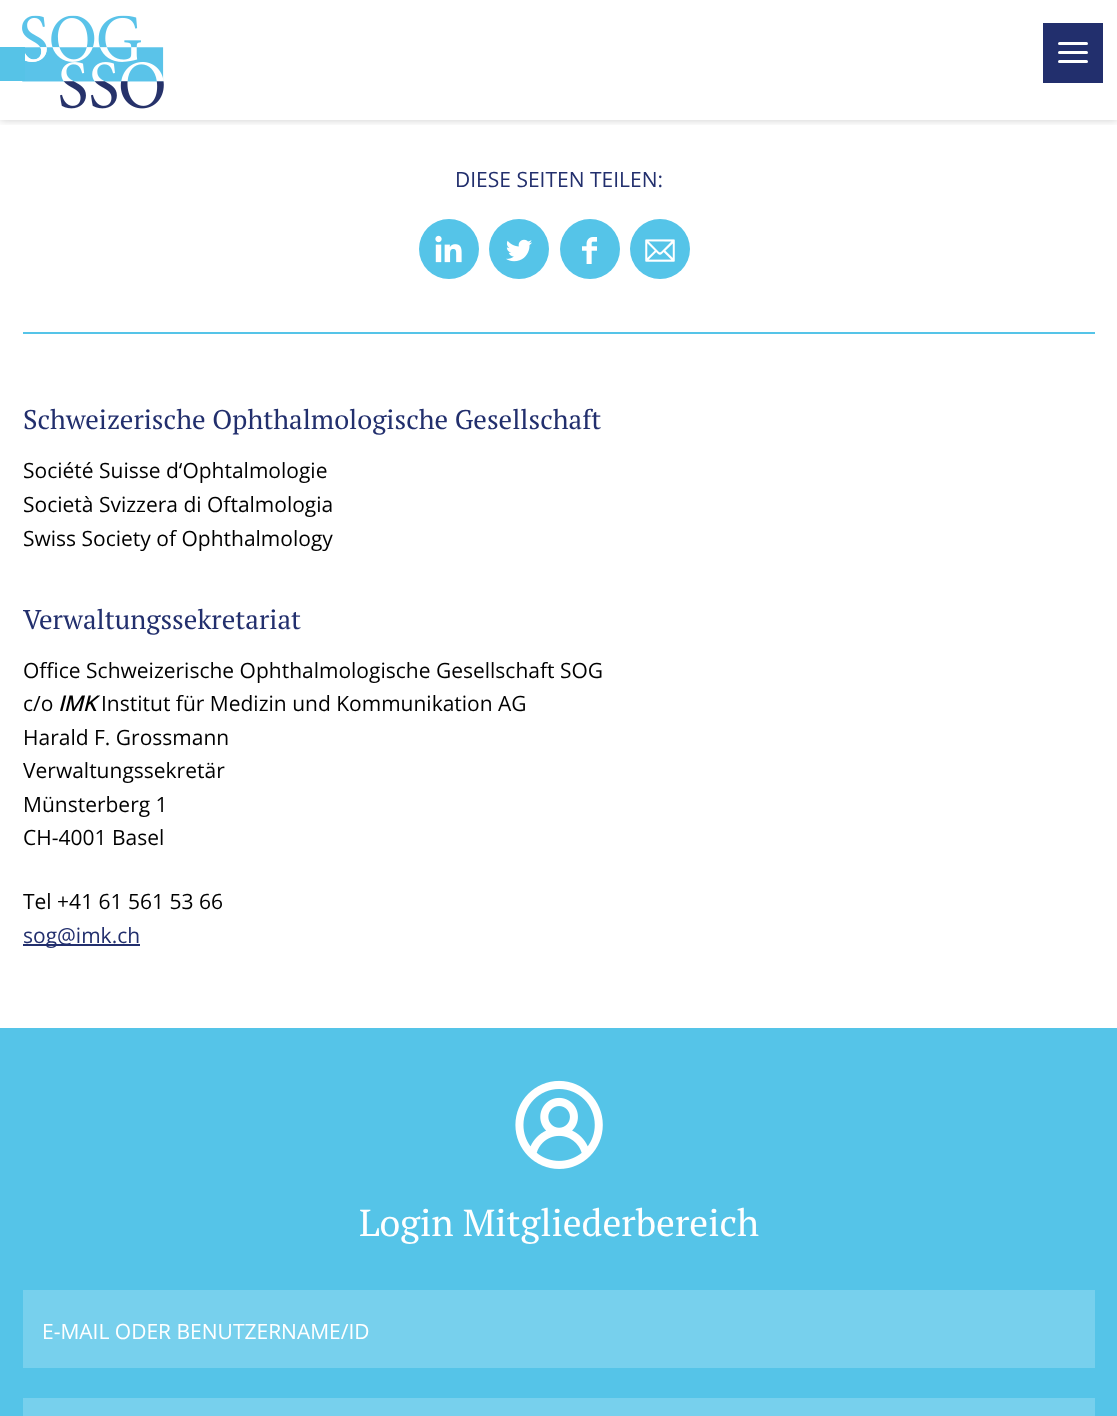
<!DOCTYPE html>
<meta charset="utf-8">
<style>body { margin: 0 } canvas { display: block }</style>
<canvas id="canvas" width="1117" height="1416"></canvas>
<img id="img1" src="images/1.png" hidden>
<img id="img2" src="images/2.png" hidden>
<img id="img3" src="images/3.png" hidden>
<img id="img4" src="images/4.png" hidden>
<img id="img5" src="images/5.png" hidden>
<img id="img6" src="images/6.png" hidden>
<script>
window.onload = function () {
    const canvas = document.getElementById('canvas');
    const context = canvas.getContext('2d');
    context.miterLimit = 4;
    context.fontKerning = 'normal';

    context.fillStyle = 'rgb(255, 255, 255)';
    context.fillRect(0, 0, 1117, 1416);
    context.save();
    context.beginPath();
    context.rect(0, 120, 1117, 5);
    context.clip();
    context.fillStyle = 'rgba(0, 0, 0, 0.2)';
    context.filter = 'blur(4px)';
    context.beginPath();
    context.rect(0, 0, 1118, 120);
    context.fill();
    context.filter = 'none';
    context.restore();
    context.drawImage(document.getElementById('img1'), 0, 15, 164, 94);
    context.fillStyle = 'rgb(34, 47, 109)';
    context.fillRect(1043, 23, 60, 60);
    context.fillStyle = 'rgb(255, 255, 255)';
    context.beginPath();
    context.roundRect(1058, 51, 30, 3, 1.5);
    context.fill();
    context.beginPath();
    context.roundRect(1058, 42, 30, 3, 1.5);
    context.fill();
    context.beginPath();
    context.roundRect(1058, 60, 30, 3, 1.5);
    context.fill();
    context.fillStyle = 'rgb(85, 196, 232)';
    context.beginPath();
    context.arc(449, 249, 30, 0, 2 * Math.PI);
    context.fill();
    context.drawImage(document.getElementById('img2'), 435, 235, 27, 28);
    context.beginPath();
    context.arc(519, 249, 30, 0, 2 * Math.PI);
    context.fill();
    context.drawImage(document.getElementById('img3'), 506, 239, 26, 23);
    context.beginPath();
    context.arc(590, 249, 30, 0, 2 * Math.PI);
    context.fill();
    context.drawImage(document.getElementById('img4'), 582, 237, 15, 27);
    context.beginPath();
    context.arc(660, 249, 30, 0, 2 * Math.PI);
    context.fill();
    context.drawImage(document.getElementById('img5'), 645, 239, 30, 23);
    context.fillRect(23, 332, 1072, 2);
    context.fillStyle = 'rgb(34, 47, 109)';
    context.fillRect(23, 944, 117, 2);
    context.fillStyle = 'rgb(85, 196, 232)';
    context.fillRect(0, 1028, 1117, 388);
    context.drawImage(document.getElementById('img6'), 515, 1080, 88, 89);
    context.fillStyle = 'rgb(119, 208, 237)';
    context.fillRect(23, 1290, 1072, 78);
    context.fillRect(23, 1398, 1072, 18);
    context.font = '21px Open Sans';
    context.fillStyle = 'rgb(34, 47, 109)';
    context.fillText('DIESE SEITEN TEILEN:', 455, 187);
    context.font = '27px PT Serif';
    context.fillText('Schweizerische Ophthalmologische Gesellschaft', 23, 429);
    context.font = '21px Open Sans';
    context.fillStyle = 'rgb(0, 0, 0)';
    context.fillText('Société Suisse d‘Ophtalmologie', 23, 478);
    context.fillText('Società Svizzera di Oftalmologia', 23, 512);
    context.fillText('Swiss Society of Ophthalmology', 23, 546);
    context.font = '27px PT Serif';
    context.fillStyle = 'rgb(34, 47, 109)';
    context.fillText('Verwaltungssekretariat', 23, 629);
    context.font = '21px Open Sans';
    context.fillStyle = 'rgb(0, 0, 0)';
    context.fillText('Office Schweizerische Ophthalmologische Gesellschaft SOG', 23, 678);
    context.fillText('c/o', 23, 711);
    context.font = 'italic bold 21px Open Sans';
    context.fillText('IMK', 58, 711);
    context.font = '21px Open Sans';
    context.fillText('Institut für Medizin und Kommunikation AG', 101, 711);
    context.fillText('Harald F. Grossmann', 23, 745);
    context.fillText('Verwaltungssekretär', 23, 778);
    context.fillText('Münsterberg 1', 23, 812);
    context.fillText('CH-4001 Basel', 23, 845);
    context.fillText('Tel +41 61 561 53 66', 23, 909);
    context.fillStyle = 'rgb(34, 47, 109)';
    context.fillText('sog@imk.ch', 23, 943);
    context.font = '37.5px PT Serif';
    context.fillStyle = 'rgb(255, 255, 255)';
    context.fillText('Login Mitgliederbereich', 359, 1236);
    context.font = '21px Open Sans';
    context.fillText('E-MAIL ODER BENUTZERNAME/ID', 42, 1339);
};
</script>
